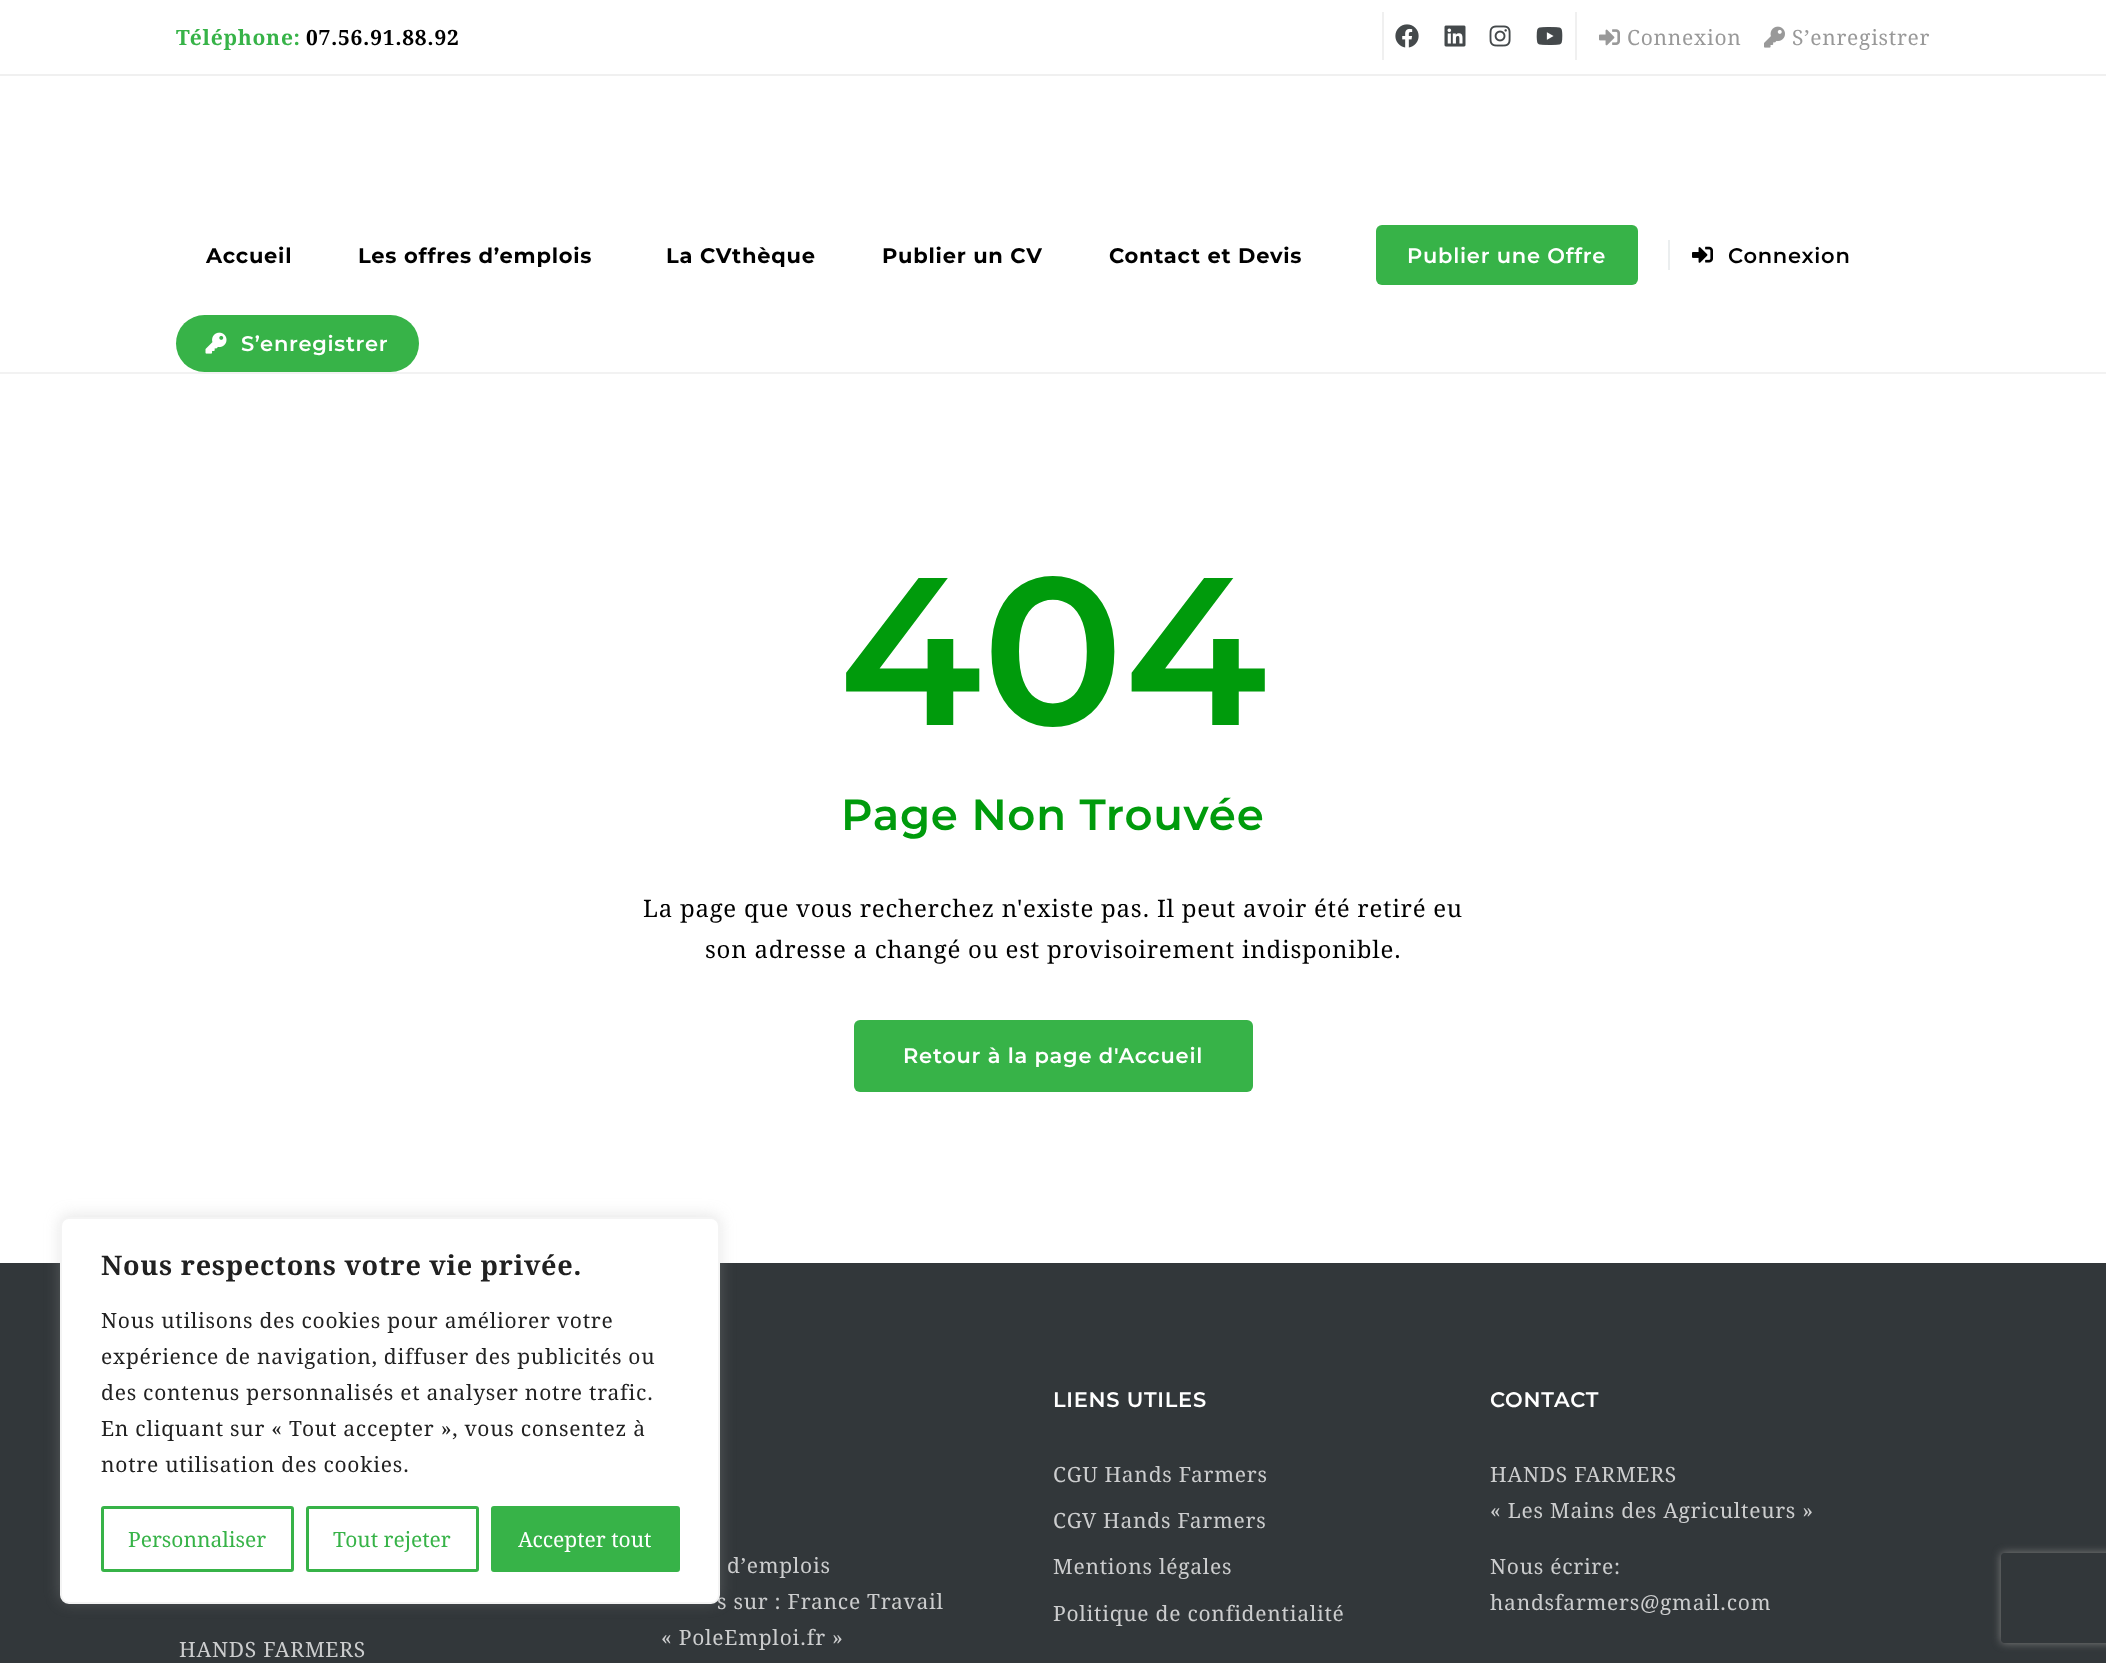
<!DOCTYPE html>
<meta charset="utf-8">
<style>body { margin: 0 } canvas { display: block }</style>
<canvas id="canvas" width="2106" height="1663"></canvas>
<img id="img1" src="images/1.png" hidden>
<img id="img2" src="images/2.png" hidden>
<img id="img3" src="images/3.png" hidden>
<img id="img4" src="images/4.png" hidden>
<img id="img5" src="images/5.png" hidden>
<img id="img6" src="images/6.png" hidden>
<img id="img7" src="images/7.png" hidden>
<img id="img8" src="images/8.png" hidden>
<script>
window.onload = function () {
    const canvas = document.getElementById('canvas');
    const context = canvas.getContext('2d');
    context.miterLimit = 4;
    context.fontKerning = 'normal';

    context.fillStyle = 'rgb(255, 255, 255)';
    context.fillRect(0, 0, 2106, 1663);
    context.fillStyle = 'rgb(240, 240, 240)';
    context.fillRect(0, 74, 2106, 2);
    context.fillRect(1382, 12, 2, 48);
    context.drawImage(document.getElementById('img1'), 1395, 24, 24, 24);
    context.drawImage(document.getElementById('img2'), 1444, 25, 22, 22);
    context.drawImage(document.getElementById('img3'), 1489, 25, 22, 22);
    context.fillRect(1575, 12, 2, 48);
    context.drawImage(document.getElementById('img4'), 1536, 27, 27, 18);
    context.drawImage(document.getElementById('img5'), 1599, 29, 21, 17);
    context.drawImage(document.getElementById('img6'), 1764, 26, 21, 22);
    context.fillStyle = 'rgb(242, 242, 242)';
    context.fillRect(0, 372, 2106, 2);
    context.fillStyle = 'rgb(55, 179, 72)';
    context.beginPath();
    context.roundRect(1376, 225, 262, 60, 6);
    context.fill();
    context.fillStyle = 'rgb(235, 238, 239)';
    context.fillRect(1668, 240, 2, 30);
    context.drawImage(document.getElementById('img7'), 1692, 246, 21, 17);
    context.fillStyle = 'rgb(55, 179, 72)';
    context.beginPath();
    context.roundRect(176, 315, 243, 57, 28.5);
    context.fill();
    context.drawImage(document.getElementById('img8'), 205, 332, 22, 22);
    context.beginPath();
    context.roundRect(854, 1020, 399, 72, 6);
    context.fill();
    context.fillStyle = 'rgb(50, 55, 58)';
    context.fillRect(0, 1263, 2106, 400);
    context.fillStyle = 'rgba(172, 171, 171, 0.3)';
    context.filter = 'blur(7.5px)';
    context.beginPath();
    context.roundRect(60, 1215, 660, 387, 9);
    context.fill();
    context.filter = 'none';
    context.save();
    context.beginPath();
    context.moveTo(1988, 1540);
    context.lineTo(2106, 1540);
    context.lineTo(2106, 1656);
    context.lineTo(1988, 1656);
    context.closePath();
    context.moveTo(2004, 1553);
    context.lineTo(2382, 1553);
    context.bezierCurveTo(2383.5, 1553, 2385, 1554.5, 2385, 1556);
    context.lineTo(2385, 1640);
    context.bezierCurveTo(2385, 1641.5, 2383.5, 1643, 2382, 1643);
    context.lineTo(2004, 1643);
    context.bezierCurveTo(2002.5, 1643, 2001, 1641.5, 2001, 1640);
    context.lineTo(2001, 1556);
    context.bezierCurveTo(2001, 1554.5, 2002.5, 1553, 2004, 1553);
    context.closePath();
    context.clip('evenodd');
    context.fillStyle = 'rgb(128, 128, 128)';
    context.filter = 'blur(4px)';
    context.beginPath();
    context.roundRect(2001, 1553, 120, 90, 3);
    context.fill();
    context.filter = 'none';
    context.restore();
    context.letterSpacing = '0.75px';
    context.font = 'bold 21px Droid Serif';
    context.fillStyle = 'rgb(55, 179, 72)';
    context.fillText('Téléphone:', 176, 45);
    context.fillStyle = 'rgb(0, 0, 0)';
    context.fillText('07.56.91.88.92', 306, 45);
    context.font = '21px Droid Serif';
    context.fillStyle = 'rgb(153, 153, 153)';
    context.fillText('Connexion', 1627, 45);
    context.fillText('S’enregistrer', 1792, 45);
    context.font = 'bold 21px Montserrat';
    context.fillStyle = 'rgb(0, 0, 0)';
    context.fillText('Accueil', 206, 263);
    context.fillText('Les offres d’emplois', 358, 263);
    context.fillText('La CVthèque', 666, 263);
    context.fillText('Publier un CV', 882, 263);
    context.fillText('Contact et Devis', 1109, 263);
    context.font = '600 21px Montserrat';
    context.fillStyle = 'rgb(255, 255, 255)';
    context.fillText('Publier une Offre', 1407, 263);
    context.fillStyle = 'rgb(0, 0, 0)';
    context.fillText('Connexion', 1728, 263);
    context.fillStyle = 'rgb(255, 255, 255)';
    context.fillText('S’enregistrer', 241, 351);
    context.font = '600 210px Montserrat';
    context.fillStyle = 'rgb(0, 155, 12)';
    context.fillText('404', 839, 725);
    context.font = '600 43.5px Montserrat';
    context.fillText('Page Non Trouvée', 841, 830);
    context.font = '24px Droid Serif';
    context.fillStyle = 'rgb(0, 0, 0)';
    context.fillText('La page que vous recherchez n\'existe pas. Il peut avoir été retiré eu', 643, 917);
    context.fillText('son adresse a changé ou est provisoirement indisponible.', 705, 958);
    context.font = '600 21px Montserrat';
    context.fillStyle = 'rgb(255, 255, 255)';
    context.fillText('Retour à la page d\'Accueil', 903, 1063);
    context.font = '21px Droid Serif';
    context.fillStyle = 'rgb(204, 205, 206)';
    context.fillText('HANDS FARMERS', 179, 1657);
    context.fillText('d’emplois', 727, 1573);
    context.fillText('s sur : France Travail', 717, 1609);
    context.fillText('« PoleEmploi.fr »', 661, 1645);
    context.font = '600 21px Montserrat';
    context.fillStyle = 'rgb(255, 255, 255)';
    context.fillText('LIENS UTILES', 1053, 1407);
    context.font = '21px Droid Serif';
    context.fillStyle = 'rgb(204, 205, 206)';
    context.fillText('CGU Hands Farmers', 1053, 1482);
    context.fillText('CGV Hands Farmers', 1053, 1528);
    context.fillText('Mentions légales', 1053, 1574);
    context.fillText('Politique de confidentialité', 1053, 1621);
    context.font = '600 21px Montserrat';
    context.fillStyle = 'rgb(255, 255, 255)';
    context.fillText('CONTACT', 1490, 1407);
    context.font = '21px Droid Serif';
    context.fillStyle = 'rgb(204, 205, 206)';
    context.fillText('HANDS FARMERS', 1490, 1482);
    context.fillText('« Les Mains des Agriculteurs »', 1490, 1518);
    context.fillText('Nous écrire:', 1490, 1574);
    context.fillText('handsfarmers@gmail.com', 1490, 1610);
    context.fillStyle = 'rgb(255, 255, 255)';
    context.beginPath();
    context.roundRect(61, 1218, 658, 385, 8);
    context.fill();
    context.strokeStyle = 'rgb(244, 244, 244)';
    context.lineWidth = 2;
    context.stroke();
    context.font = 'bold 27px Droid Serif';
    context.fillStyle = 'rgb(33, 33, 33)';
    context.fillText('Nous respectons votre vie privée.', 101, 1275);
    context.font = '21px Droid Serif';
    context.fillText('Nous utilisons des cookies pour améliorer votre', 101, 1328);
    context.fillText('expérience de navigation, diffuser des publicités ou', 101, 1364);
    context.fillText('des contenus personnalisés et analyser notre trafic.', 101, 1400);
    context.fillText('En cliquant sur « Tout accepter », vous consentez à', 101, 1436);
    context.fillText('notre utilisation des cookies.', 101, 1472);
    context.beginPath();
    context.roundRect(102.5, 1507.5, 190, 63, 1.5);
    context.strokeStyle = 'rgb(55, 179, 72)';
    context.lineWidth = 3;
    context.stroke();
    context.letterSpacing = '0px';
    context.fillStyle = 'rgb(55, 179, 72)';
    context.fillText('Personnaliser', 128, 1547);
    context.beginPath();
    context.roundRect(307.5, 1507.5, 170, 63, 1.5);
    context.stroke();
    context.fillText('Tout rejeter', 333, 1547);
    context.beginPath();
    context.roundRect(492.5, 1507.5, 186, 63, 1.5);
    context.fill();
    context.stroke();
    context.fillStyle = 'rgb(255, 255, 255)';
    context.fillText('Accepter tout', 518, 1547);
};
</script>
